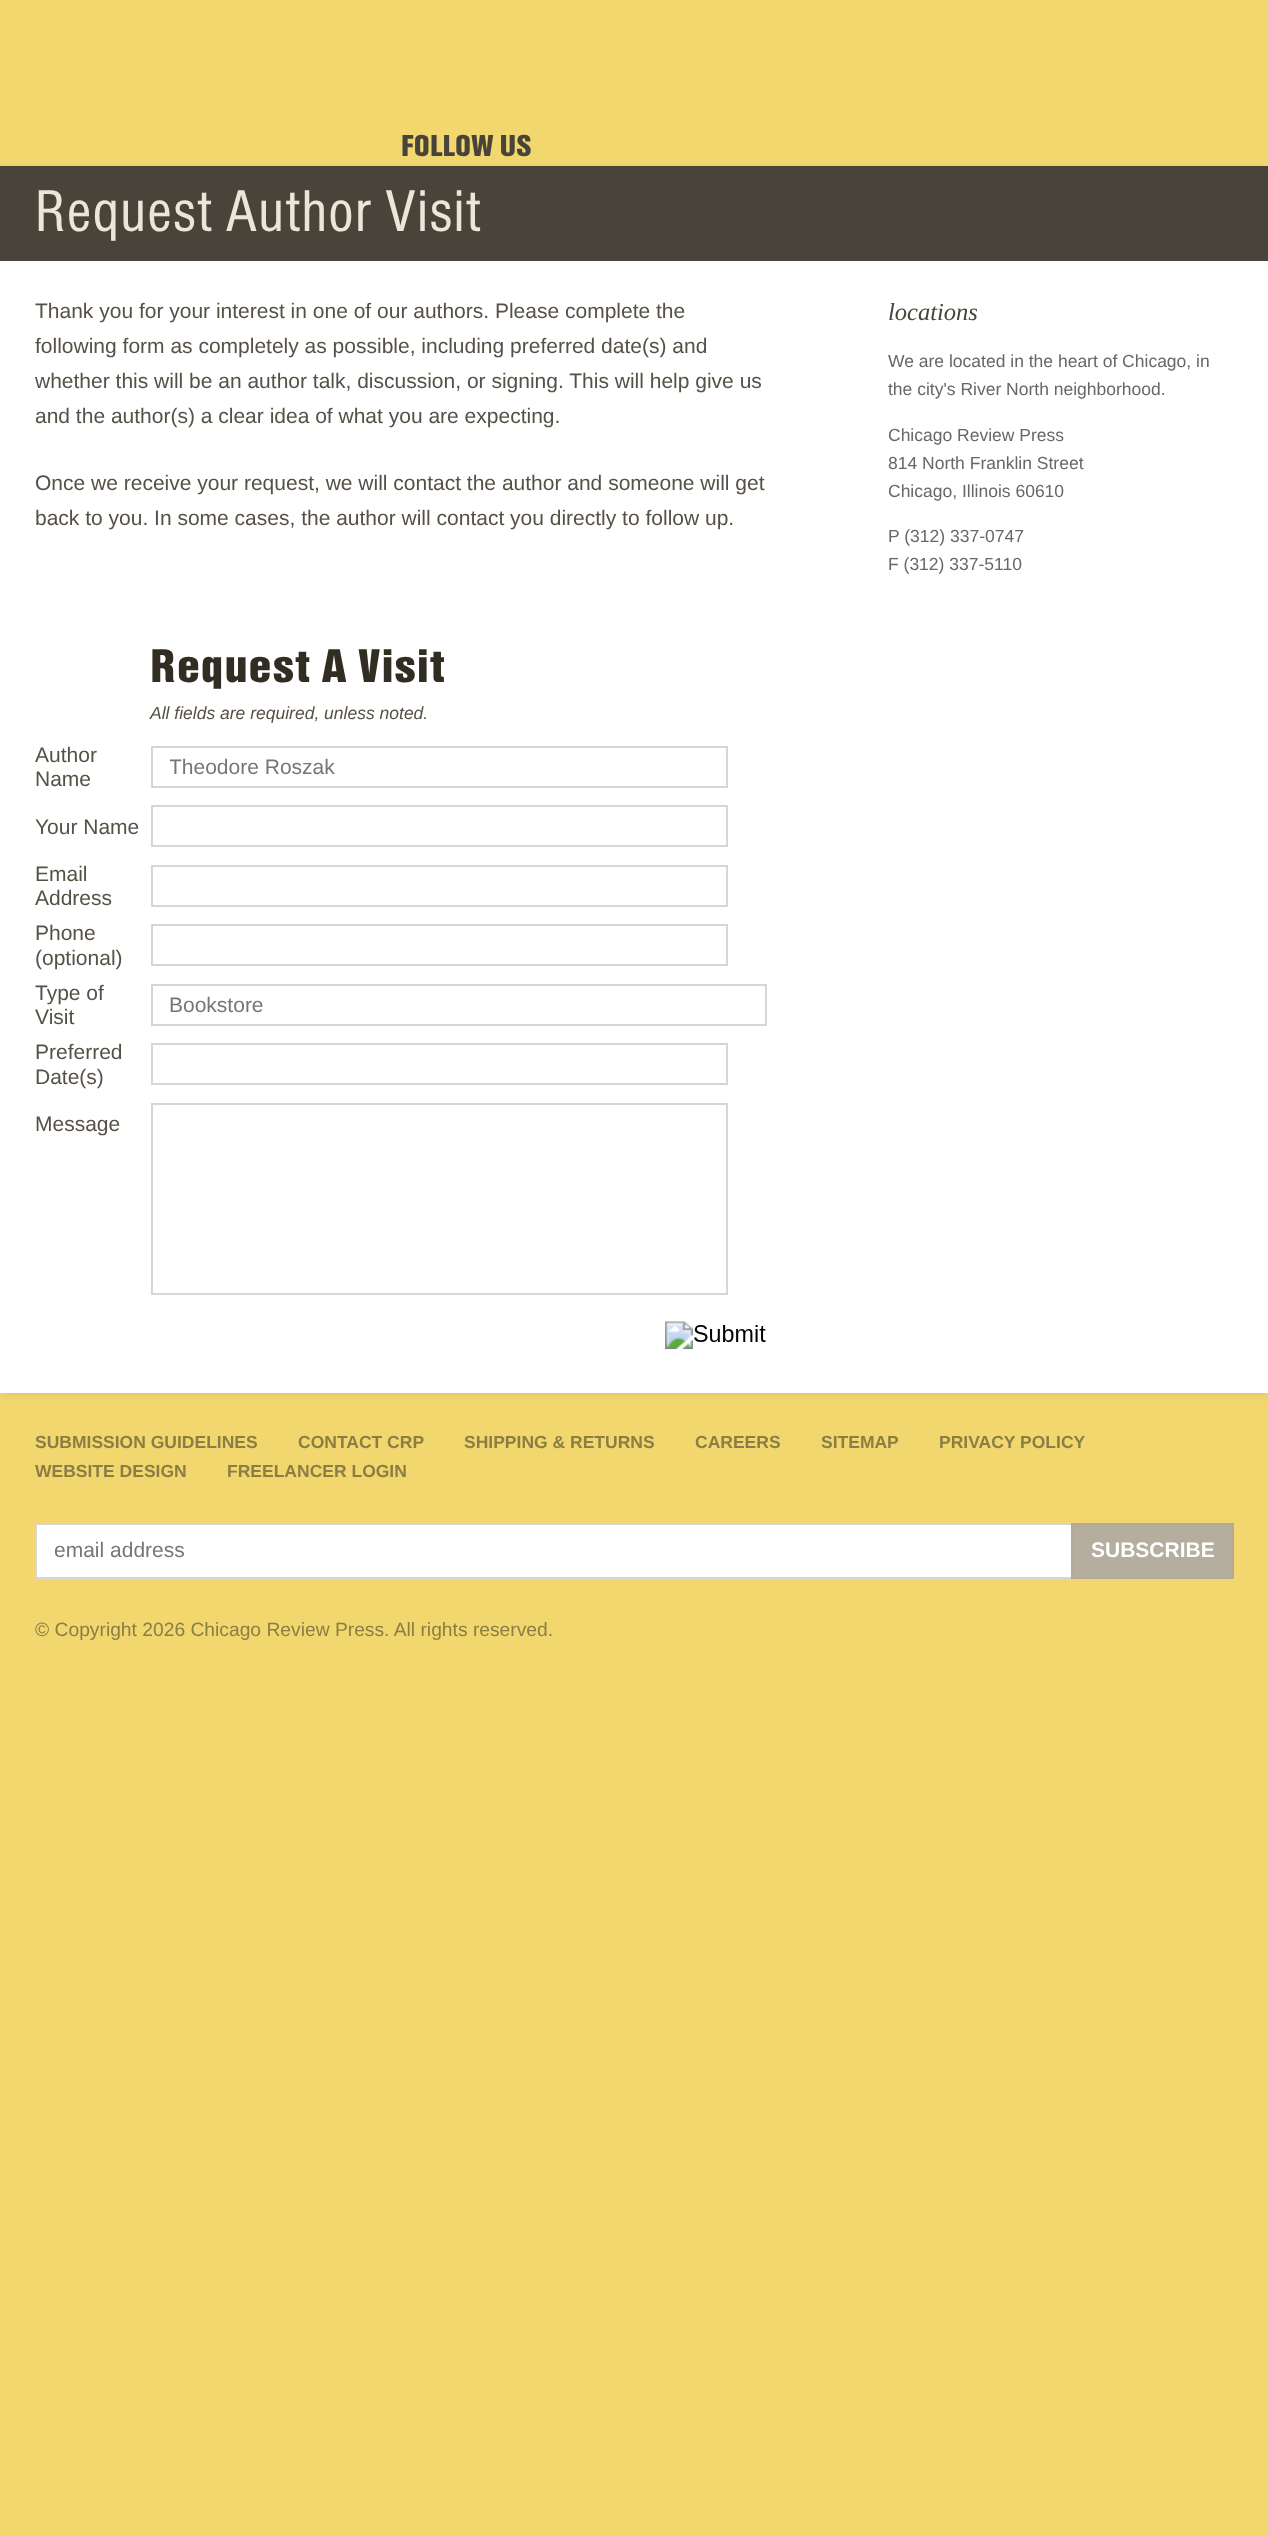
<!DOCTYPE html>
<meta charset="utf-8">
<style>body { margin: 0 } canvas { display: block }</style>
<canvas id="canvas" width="1268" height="2536"></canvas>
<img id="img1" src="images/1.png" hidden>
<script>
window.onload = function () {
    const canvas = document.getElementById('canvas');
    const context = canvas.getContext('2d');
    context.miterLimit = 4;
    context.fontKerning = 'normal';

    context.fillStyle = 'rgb(241, 215, 109)';
    context.fillRect(0, 0, 1268, 2536);
    context.fillStyle = 'rgba(122, 122, 122, 0.15)';
    context.filter = 'blur(4.5px)';
    context.beginPath();
    context.rect(2, 168, 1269, 1227);
    context.fill();
    context.filter = 'none';
    context.fillStyle = 'rgb(255, 255, 255)';
    context.fillRect(0, 261, 1268, 1132);
    context.fillStyle = 'rgb(73, 68, 58)';
    context.fillRect(0, 166, 1268, 95);
    context.strokeStyle = 'rgb(214, 214, 214)';
    context.lineWidth = 2;
    context.strokeRect(152, 747, 575, 40);
    context.strokeRect(152, 806, 575, 40);
    context.strokeRect(152, 866, 575, 40);
    context.strokeRect(152, 925, 575, 40);
    context.strokeRect(152, 985, 614, 40);
    context.strokeRect(152, 1044, 575, 40);
    context.strokeRect(152, 1104, 575, 190);
    context.drawImage(document.getElementById('img1'), 665, 1321, 101, 29);
    context.fillStyle = 'rgb(255, 255, 255)';
    context.fillRect(37, 1525, 1034, 52);
    context.strokeRect(36, 1524, 1197, 54);
    context.fillStyle = 'rgb(181, 173, 157)';
    context.fillRect(1073, 1525, 159, 53);
    context.save();
    context.beginPath();
    context.rect(35, 1523, 1199, 56);
    context.clip();
    context.strokeStyle = 'rgb(179, 169, 150)';
    context.strokeRect(1072, 1524, 161, 55);
    context.restore();
    context.font = '31.5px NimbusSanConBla';
    context.fillStyle = 'rgb(73, 68, 58)';
    context.fillText('FOLLOW US', 401, 156);
    context.letterSpacing = '1.5px';
    context.font = '61.25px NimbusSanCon';
    context.fillStyle = 'rgb(235, 230, 218)';
    context.fillText('Request Author Visit', 35, 231);
    context.letterSpacing = '0px';
    context.font = '21px Liberation Sans';
    context.fillStyle = 'rgb(86, 81, 71)';
    context.fillText('Thank you for your interest in one of our authors. Please complete the', 35, 318);
    context.fillText('following form as completely as possible, including preferred date(s) and', 35, 353);
    context.fillText('whether this will be an author talk, discussion, or signing. This will help give us', 35, 388);
    context.fillText('and the author(s) a clear idea of what you are expecting.', 35, 423);
    context.fillText('Once we receive your request, we will contact the author and someone will get', 35, 490);
    context.fillText('back to you. In some cases, the author will contact you directly to follow up.', 35, 525);
    context.letterSpacing = '1.25px';
    context.font = '49px NimbusSanConBla';
    context.fillStyle = 'rgb(49, 45, 34)';
    context.fillText('Request A Visit', 150, 682);
    context.letterSpacing = '0px';
    context.font = 'italic 17.5px Liberation Sans';
    context.fillStyle = 'rgb(86, 81, 71)';
    context.fillText('All fields are required, unless noted.', 150, 719);
    context.font = '21px Liberation Sans';
    context.fillText('Author', 35, 762);
    context.fillText('Name', 35, 786);
    context.save();
    context.beginPath();
    context.rect(170, 754, 539, 25);
    context.clip();
    context.fillStyle = 'rgb(118, 118, 118)';
    context.fillText('Theodore Roszak', 169, 774);
    context.restore();
    context.fillText('Your Name', 35, 834);
    context.fillText('Email', 35, 881);
    context.fillText('Address', 35, 905);
    context.fillText('Phone', 35, 940);
    context.fillText('(optional)', 35, 965);
    context.fillText('Type of', 35, 1000);
    context.fillText('Visit', 35, 1024);
    context.fillStyle = 'rgb(118, 118, 118)';
    context.fillText('Bookstore', 169, 1012);
    context.fillStyle = 'rgb(86, 81, 71)';
    context.fillText('Preferred', 35, 1059);
    context.fillText('Date(s)', 35, 1084);
    context.fillText('Message', 35, 1131);
    context.font = 'italic 24.5px Liberation Serif';
    context.fillStyle = 'rgb(73, 68, 58)';
    context.fillText('locations', 888, 320);
    context.font = '17.5px Liberation Sans';
    context.fillStyle = 'rgb(103, 103, 103)';
    context.fillText('We are located in the heart of Chicago, in', 888, 367);
    context.fillText('the city\'s River North neighborhood.', 888, 395);
    context.fillText('Chicago Review Press', 888, 441);
    context.fillText('814 North Franklin Street', 888, 469);
    context.fillText('Chicago, Illinois 60610', 888, 497);
    context.fillText('P (312) 337-0747', 888, 542);
    context.fillText('F (312) 337-5110', 888, 570);
    context.font = 'bold 17.5px Liberation Sans';
    context.fillStyle = 'rgb(139, 126, 69)';
    context.fillText('SUBMISSION GUIDELINES', 35, 1448);
    context.fillText('CONTACT CRP', 298, 1448);
    context.fillText('SHIPPING & RETURNS', 464, 1448);
    context.fillText('CAREERS', 695, 1448);
    context.fillText('SITEMAP', 821, 1448);
    context.fillText('PRIVACY POLICY', 939, 1448);
    context.fillText('WEBSITE DESIGN', 35, 1477);
    context.fillText('FREELANCER LOGIN', 227, 1477);
    context.font = '21px Liberation Sans';
    context.fillStyle = 'rgb(118, 118, 118)';
    context.fillText('email address', 54, 1557);
    context.font = 'bold 21px Liberation Sans';
    context.fillStyle = 'rgb(255, 255, 255)';
    context.fillText('SUBSCRIBE', 1091, 1557);
    context.font = '19.25px Liberation Sans';
    context.fillStyle = 'rgb(139, 126, 69)';
    context.fillText('© Copyright 2026 Chicago Review Press. All rights reserved.', 35, 1636);
};
</script>
